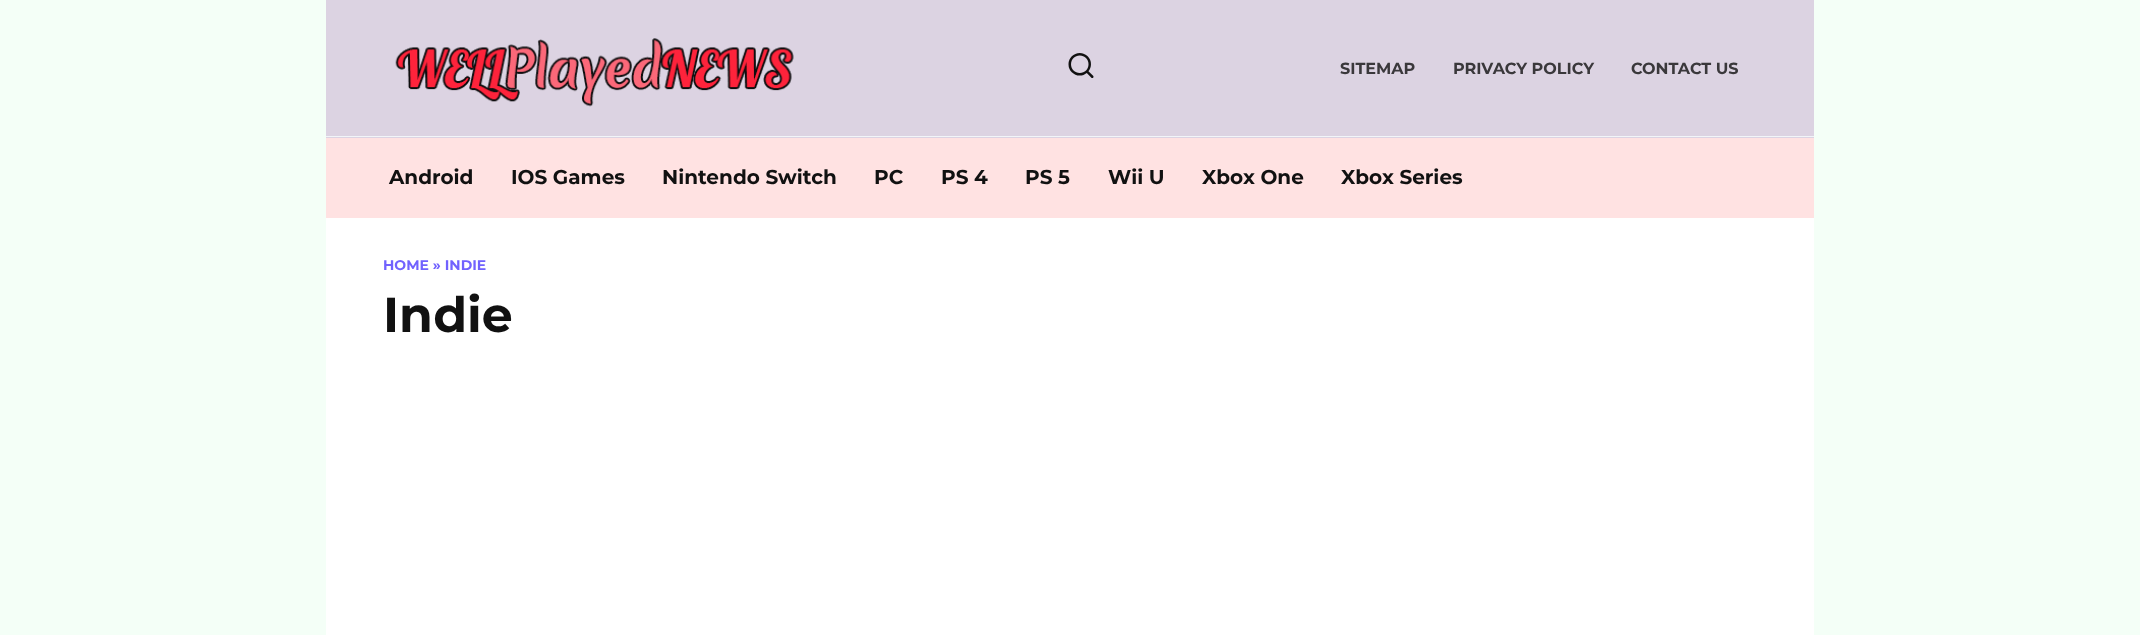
<!DOCTYPE html>
<meta charset="utf-8">
<style>body { margin: 0 } canvas { display: block }</style>
<canvas id="canvas" width="2140" height="635"></canvas>
<img id="img1" src="images/1.png" hidden>
<script>
window.onload = function () {
    const canvas = document.getElementById('canvas');
    const context = canvas.getContext('2d');
    context.miterLimit = 4;
    context.fontKerning = 'normal';

    context.fillStyle = 'rgb(244, 255, 247)';
    context.fillRect(0, 0, 2140, 635);
    context.fillStyle = 'rgb(220, 211, 226)';
    context.fillRect(326, 0, 1488, 138);
    context.fillStyle = 'rgb(242, 245, 249)';
    context.fillRect(326, 136, 1488, 1);
    context.drawImage(document.getElementById('img1'), 395, 38, 399, 69);
    context.fillStyle = 'rgb(255, 226, 226)';
    context.fillRect(326, 138, 1488, 80);
    context.fillStyle = 'rgb(255, 255, 255)';
    context.fillRect(326, 218, 1488, 417);
    context.font = '30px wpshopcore';
    context.fillStyle = 'rgb(17, 17, 17)';
    context.fillText('🔍', 1066, 78);
    context.font = 'bold 16px Montserrat';
    context.fillStyle = 'rgb(58, 56, 59)';
    context.fillText('SITEMAP', 1340, 74);
    context.fillText('PRIVACY POLICY', 1453, 74);
    context.fillText('CONTACT US', 1631, 74);
    context.font = 'bold 20px Montserrat';
    context.fillStyle = 'rgb(17, 17, 17)';
    context.fillText('Android', 389, 184);
    context.fillText('IOS Games', 511, 184);
    context.fillText('Nintendo Switch', 662, 184);
    context.fillText('PC', 874, 184);
    context.fillText('PS 4', 941, 184);
    context.fillText('PS 5', 1025, 184);
    context.fillText('Wii U', 1108, 184);
    context.fillText('Xbox One', 1202, 184);
    context.fillText('Xbox Series', 1341, 184);
    context.font = 'bold 14px Montserrat';
    context.fillStyle = 'rgb(113, 98, 254)';
    context.fillText('HOME » INDIE', 383, 270);
    context.font = 'bold 49px Montserrat';
    context.fillStyle = 'rgb(17, 17, 17)';
    context.fillText('Indie', 383, 332);
};
</script>
